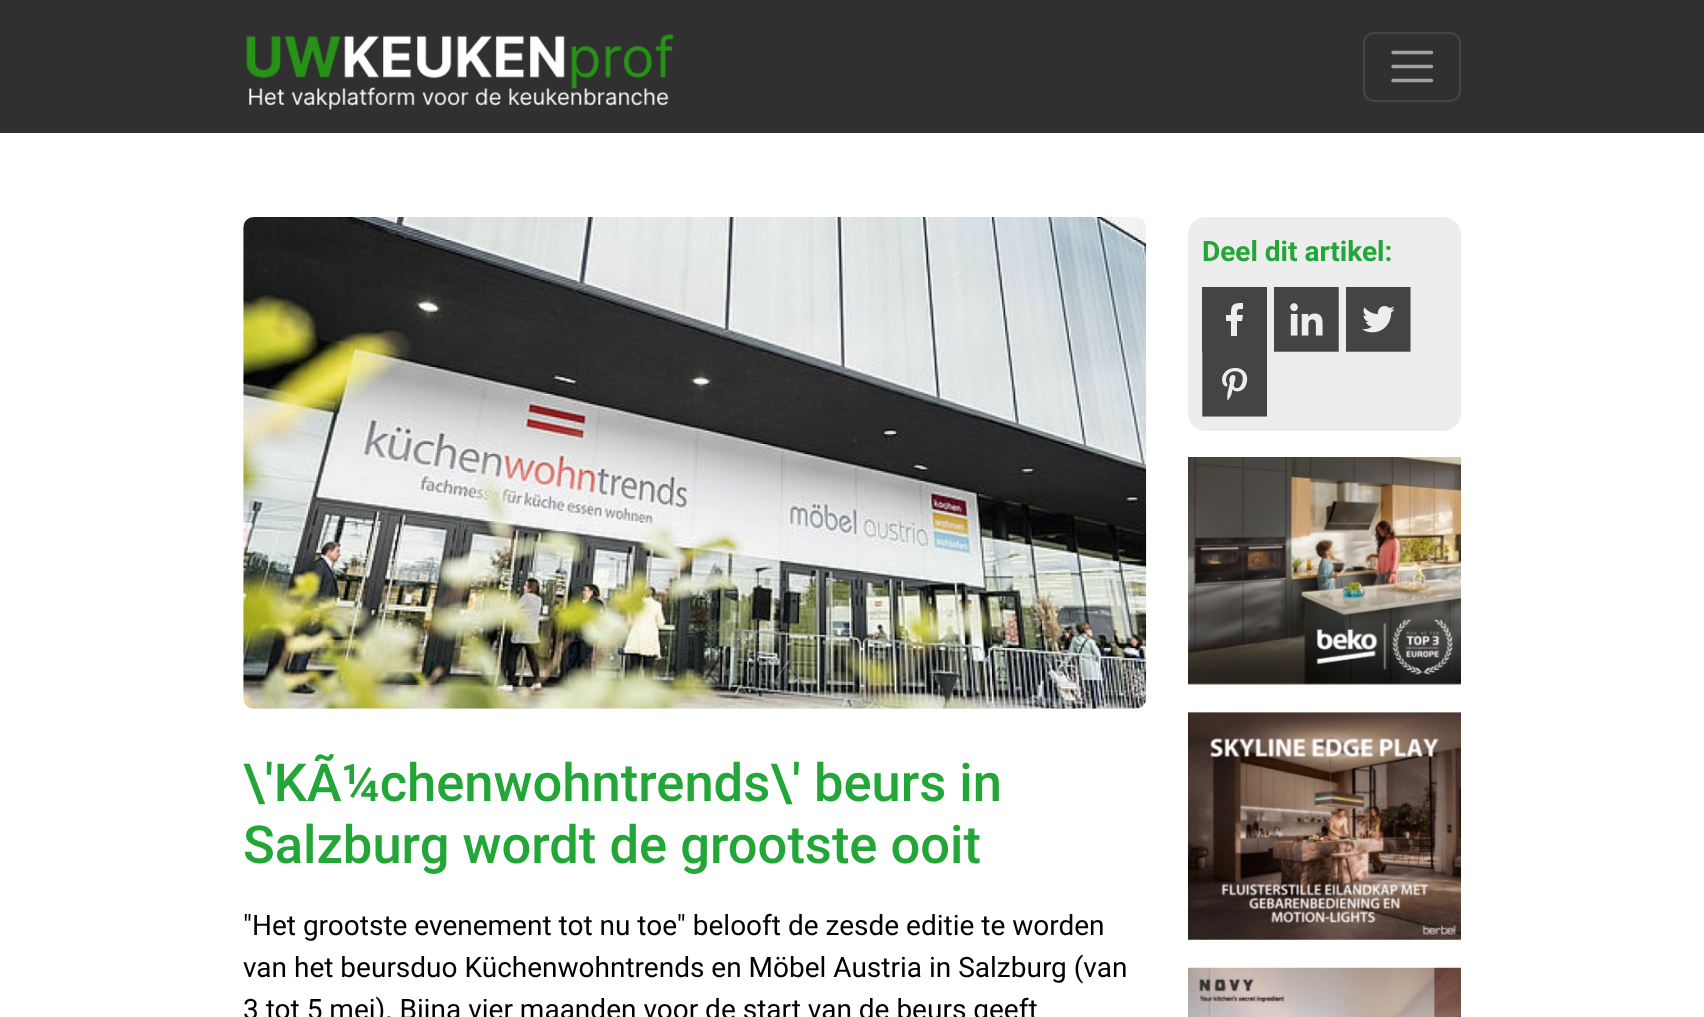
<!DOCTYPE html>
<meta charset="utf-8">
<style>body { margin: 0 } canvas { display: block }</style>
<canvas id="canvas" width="1704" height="1017"></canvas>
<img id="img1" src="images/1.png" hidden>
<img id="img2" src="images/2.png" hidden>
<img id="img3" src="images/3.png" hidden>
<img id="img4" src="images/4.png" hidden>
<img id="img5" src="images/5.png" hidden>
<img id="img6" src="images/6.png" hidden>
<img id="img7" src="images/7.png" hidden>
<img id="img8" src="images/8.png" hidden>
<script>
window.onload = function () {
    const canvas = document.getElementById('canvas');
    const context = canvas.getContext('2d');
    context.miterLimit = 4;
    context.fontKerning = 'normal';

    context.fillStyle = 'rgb(255, 255, 255)';
    context.fillRect(0, 0, 1704, 1017);
    context.fillStyle = 'rgb(48, 48, 48)';
    context.fillRect(0, 0, 1704, 133);
    context.drawImage(document.getElementById('img1'), 246, 33, 428, 77);
    context.beginPath();
    context.roundRect(1364, 33, 96, 68, 10);
    context.strokeStyle = 'rgb(69, 69, 69)';
    context.lineWidth = 2;
    context.stroke();
    context.beginPath();
    context.moveTo(1393, 52.5);
    context.lineTo(1431.5, 52.5);
    context.moveTo(1393, 66.5);
    context.lineTo(1431.5, 66.5);
    context.moveTo(1393, 80.5);
    context.lineTo(1431.5, 80.5);
    context.strokeStyle = 'rgb(162, 162, 162)';
    context.lineWidth = 3.5;
    context.lineCap = 'round';
    context.stroke();
    context.fillStyle = 'rgb(237, 237, 237)';
    context.beginPath();
    context.roundRect(1188, 217, 273, 214, 18);
    context.fill();
    context.fillStyle = 'rgb(68, 68, 68)';
    context.beginPath();
    context.moveTo(1202, 287);
    context.lineTo(1202, 352);
    context.lineTo(1267, 352);
    context.lineTo(1267, 287);
    context.closePath();
    context.moveTo(1243, 309);
    context.bezierCurveTo(1237, 309, 1237, 309, 1237, 315);
    context.lineTo(1243, 315);
    context.lineTo(1242, 321);
    context.lineTo(1237, 321);
    context.lineTo(1237, 336);
    context.lineTo(1231, 336);
    context.lineTo(1231, 321);
    context.lineTo(1226, 321);
    context.lineTo(1226, 315);
    context.lineTo(1231, 315);
    context.bezierCurveTo(1231, 304, 1233, 303, 1243, 303);
    context.closePath();
    context.fill();
    context.drawImage(document.getElementById('img2'), 1274, 287, 65, 65);
    context.drawImage(document.getElementById('img3'), 1346, 287, 65, 65);
    context.drawImage(document.getElementById('img4'), 1202, 352, 65, 65);
    context.drawImage(document.getElementById('img5'), 1188, 457, 273, 228);
    context.drawImage(document.getElementById('img6'), 1188, 712, 273, 228);
    context.drawImage(document.getElementById('img7'), 1188, 967, 273, 50);
    context.drawImage(document.getElementById('img8'), 243, 217, 904, 492);
    context.font = 'bold 28px Roboto';
    context.fillStyle = 'rgb(35, 166, 56)';
    context.fillText('Deel dit artikel:', 1202, 261);
    context.font = '500 52.5px Roboto';
    context.fillText('\\\'KÃ¼chenwohntrends\\\' beurs in', 243, 801);
    context.fillText('Salzburg wordt de grootste ooit', 243, 863);
    context.font = '28px Roboto';
    context.fillStyle = 'rgb(0, 0, 0)';
    context.fillText('"Het grootste evenement tot nu toe" belooft de zesde editie te worden', 243, 935);
    context.fillText('van het beursduo Küchenwohntrends en Möbel Austria in Salzburg (van', 243, 977);
    context.fillText('3 tot 5 mei). Bijna vier maanden voor de start van de beurs geeft', 243, 1019);
};
</script>
